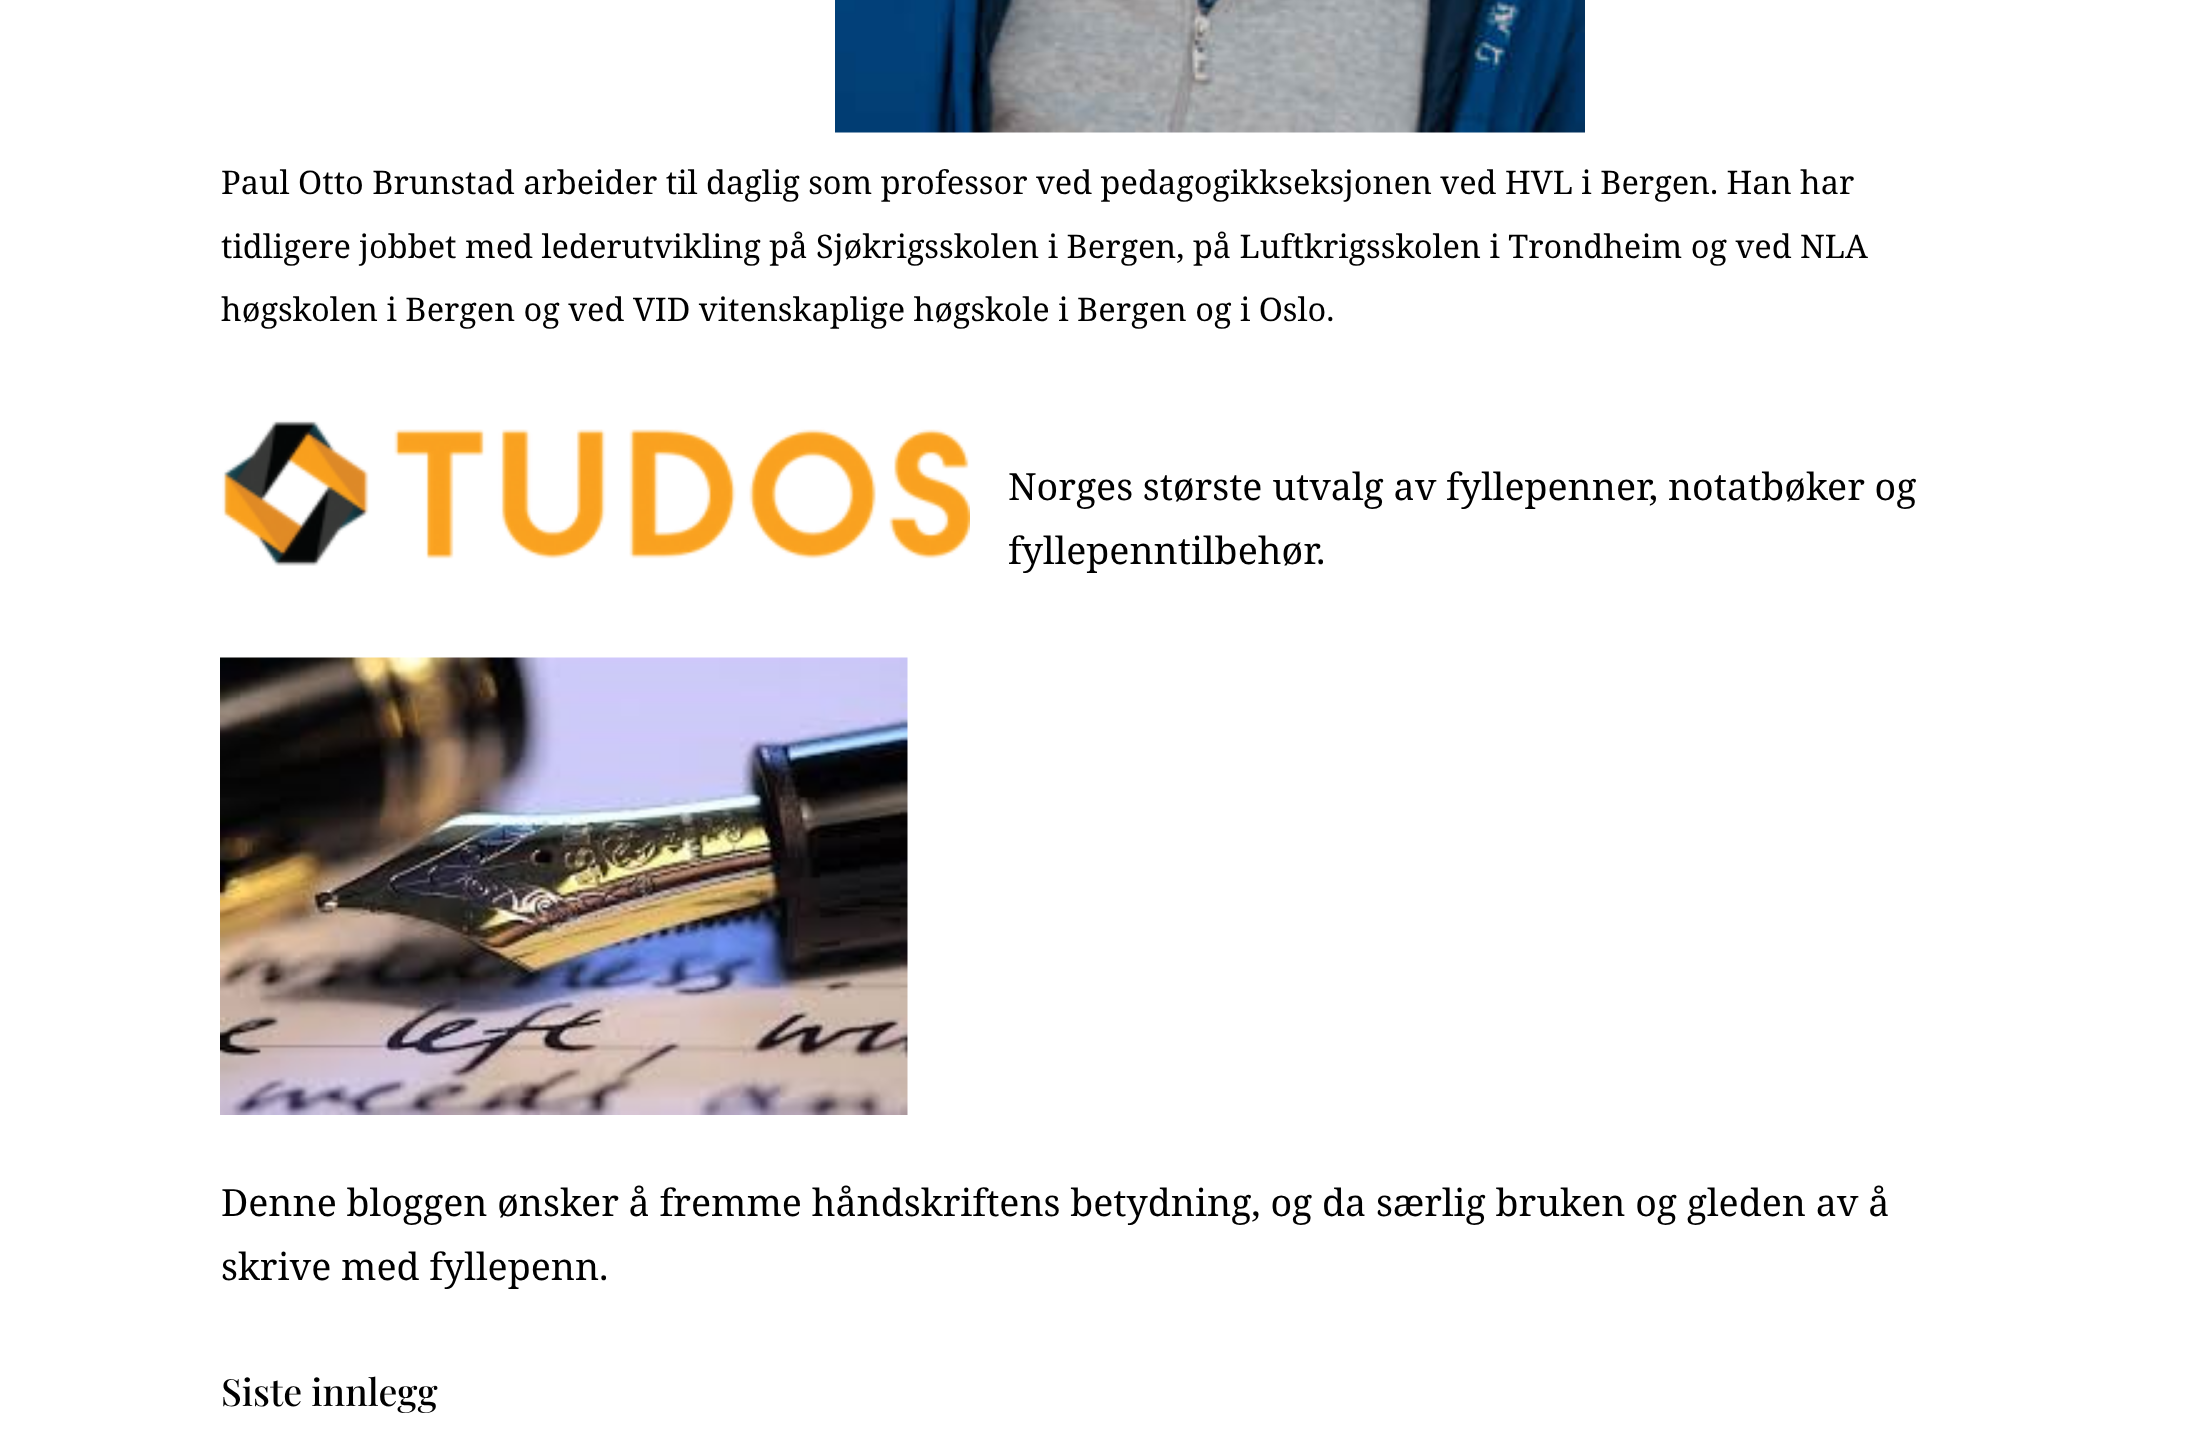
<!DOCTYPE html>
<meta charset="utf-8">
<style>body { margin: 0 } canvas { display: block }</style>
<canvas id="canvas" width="2204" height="1450"></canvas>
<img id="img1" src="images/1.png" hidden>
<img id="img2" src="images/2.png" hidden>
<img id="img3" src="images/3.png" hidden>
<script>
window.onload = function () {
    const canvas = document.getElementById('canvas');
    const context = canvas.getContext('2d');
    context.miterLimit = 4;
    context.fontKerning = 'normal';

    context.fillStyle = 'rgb(255, 255, 255)';
    context.fillRect(0, 0, 2204, 1450);
    context.drawImage(document.getElementById('img1'), 835, 0, 750, 133);
    context.drawImage(document.getElementById('img2'), 222, 420, 748, 146);
    context.drawImage(document.getElementById('img3'), 220, 657, 688, 458);
    context.font = '32.5px Noto Serif';
    context.fillStyle = 'rgb(0, 0, 0)';
    context.fillText('Paul Otto Brunstad arbeider til daglig som professor ved pedagogikkseksjonen ved HVL i Bergen. Han har', 221, 194);
    context.fillText('tidligere jobbet med lederutvikling på Sjøkrigsskolen i Bergen, på Luftkrigsskolen i Trondheim og ved NLA', 221, 258);
    context.fillText('høgskolen i Bergen og ved VID vitenskaplige høgskole i Bergen og i Oslo.', 221, 321);
    context.font = '37.5px Noto Serif';
    context.fillText('Norges største utvalg av fyllepenner, notatbøker og', 1008, 500);
    context.fillText('fyllepenntilbehør.', 1008, 564);
    context.fillText('Denne bloggen ønsker å fremme håndskriftens betydning, og da særlig bruken og gleden av å', 221, 1216);
    context.fillText('skrive med fyllepenn.', 221, 1280);
    context.font = '500 37.5px Playfair Display';
    context.fillText('Siste innlegg', 221, 1406);
};
</script>
